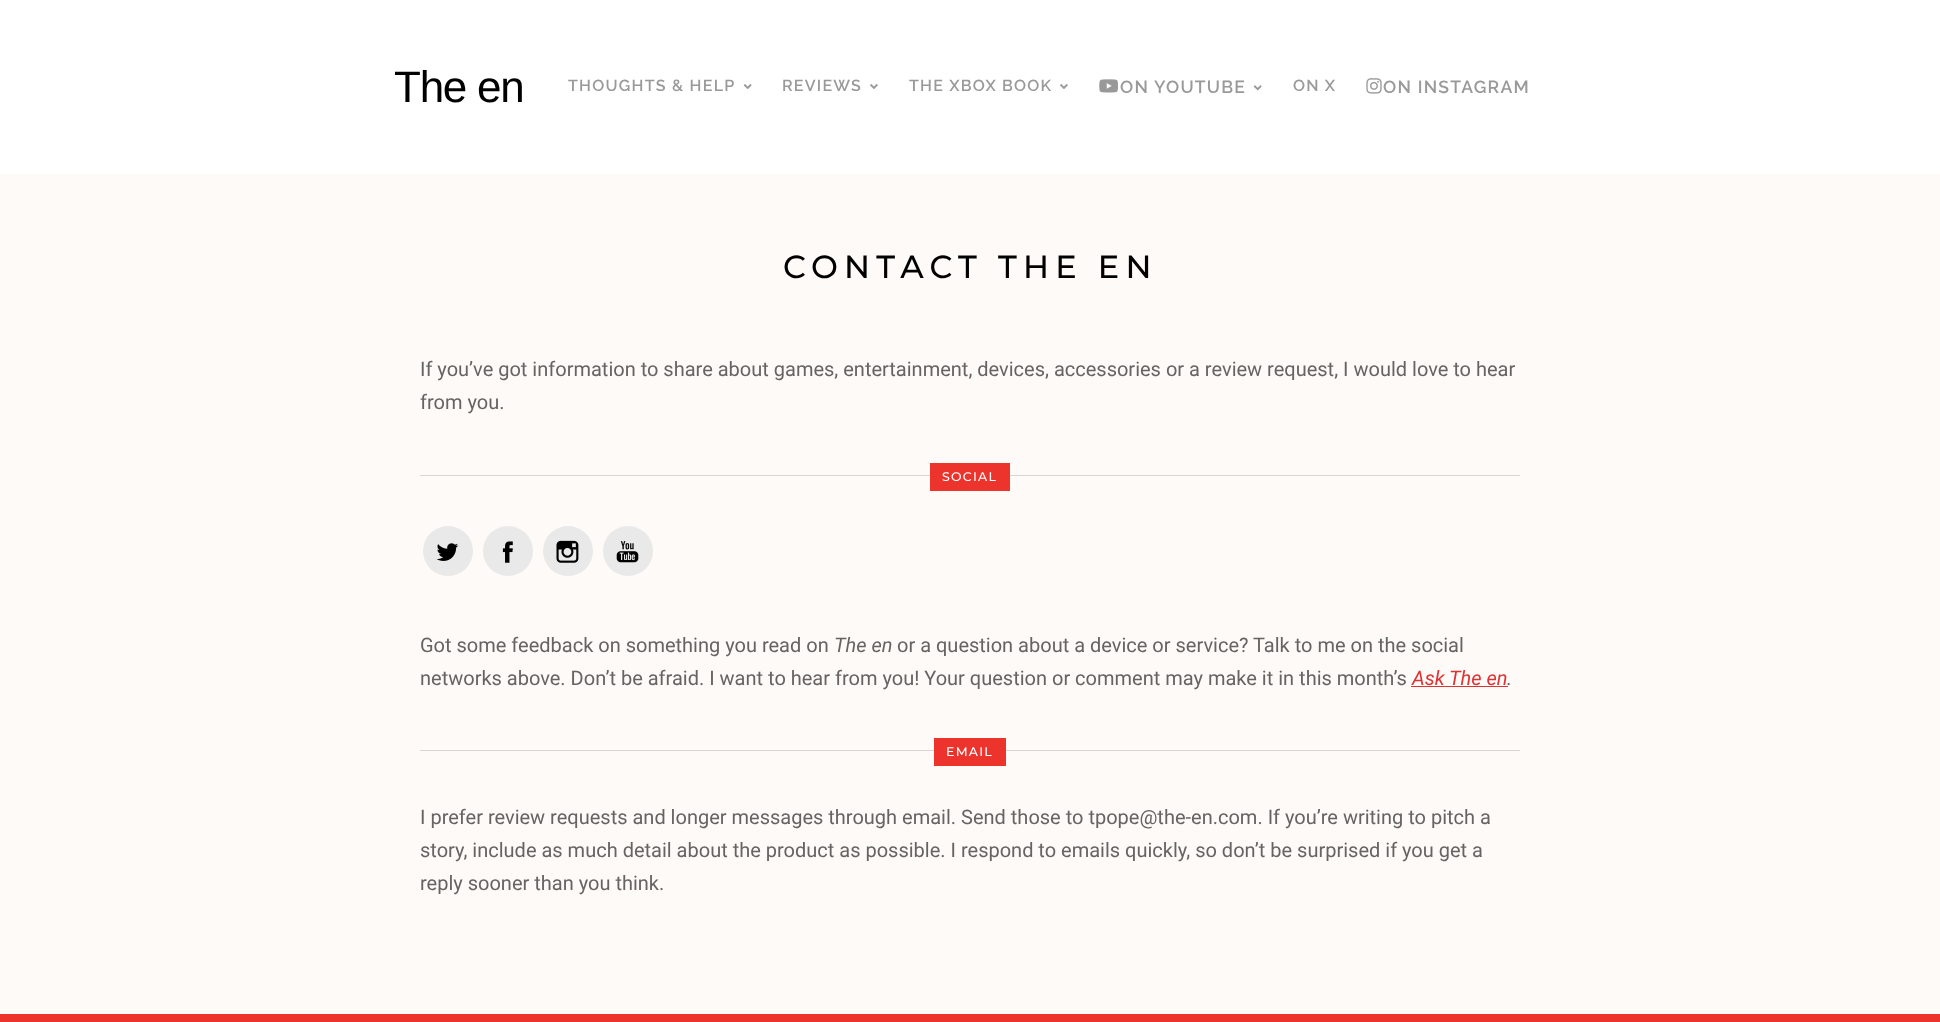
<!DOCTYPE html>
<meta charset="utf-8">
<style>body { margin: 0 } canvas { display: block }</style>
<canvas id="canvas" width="1940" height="1022"></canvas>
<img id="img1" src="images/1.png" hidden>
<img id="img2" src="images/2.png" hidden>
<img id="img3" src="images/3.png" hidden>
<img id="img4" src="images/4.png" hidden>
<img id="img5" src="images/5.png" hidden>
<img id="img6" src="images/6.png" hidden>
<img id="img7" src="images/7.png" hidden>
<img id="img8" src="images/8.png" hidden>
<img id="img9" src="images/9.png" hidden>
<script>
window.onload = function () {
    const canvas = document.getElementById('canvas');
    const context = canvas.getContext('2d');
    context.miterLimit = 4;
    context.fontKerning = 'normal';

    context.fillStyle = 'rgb(254, 250, 247)';
    context.fillRect(0, 0, 1940, 1022);
    context.fillStyle = 'rgb(255, 255, 255)';
    context.fillRect(0, 0, 1940, 174);
    context.drawImage(document.getElementById('img1'), 743, 84, 9, 5);
    context.drawImage(document.getElementById('img2'), 870, 84, 8, 5);
    context.drawImage(document.getElementById('img2'), 1060, 84, 8, 5);
    context.drawImage(document.getElementById('img3'), 1099, 79, 19, 14);
    context.drawImage(document.getElementById('img4'), 1253, 85, 9, 6);
    context.drawImage(document.getElementById('img5'), 1366, 78, 16, 16);
    context.fillStyle = 'rgb(216, 213, 210)';
    context.fillRect(420, 475, 1100, 1);
    context.fillStyle = 'rgb(236, 51, 44)';
    context.fillRect(930, 463, 80, 28);
    context.fillStyle = 'rgb(233, 233, 233)';
    context.beginPath();
    context.arc(448, 551, 25, 0, 2 * Math.PI);
    context.fill();
    context.drawImage(document.getElementById('img6'), 436, 543, 23, 18);
    context.beginPath();
    context.arc(508, 551, 25, 0, 2 * Math.PI);
    context.fill();
    context.drawImage(document.getElementById('img7'), 502, 541, 11, 22);
    context.beginPath();
    context.arc(568, 551, 25, 0, 2 * Math.PI);
    context.fill();
    context.drawImage(document.getElementById('img8'), 556, 540, 23, 23);
    context.beginPath();
    context.arc(628, 551, 25, 0, 2 * Math.PI);
    context.fill();
    context.drawImage(document.getElementById('img9'), 616, 541, 23, 22);
    context.fillStyle = 'rgb(221, 51, 51)';
    context.fillRect(1411, 686, 97, 1);
    context.fillStyle = 'rgb(216, 213, 210)';
    context.fillRect(420, 750, 1100, 1);
    context.fillStyle = 'rgb(236, 51, 44)';
    context.fillRect(934, 738, 72, 28);
    context.fillRect(0, 1014, 1940, 8);
    context.letterSpacing = '-1.25px';
    context.font = '44px Liberation Sans';
    context.fillStyle = 'rgb(0, 0, 0)';
    context.fillText('The en', 394, 102);
    context.letterSpacing = '1.25px';
    context.font = '600 16px Raleway';
    context.fillStyle = 'rgb(153, 153, 153)';
    context.fillText('THOUGHTS & HELP', 568, 91);
    context.fillText('REVIEWS', 782, 91);
    context.fillText('THE XBOX BOOK', 909, 91);
    context.font = '600 17.5px Raleway';
    context.fillText('ON YOUTUBE', 1120, 93);
    context.font = '600 16px Raleway';
    context.fillText('ON X', 1293, 91);
    context.font = '600 17.5px Raleway';
    context.fillText('ON INSTAGRAM', 1383, 93);
    context.letterSpacing = '6.25px';
    context.font = '500 32px Montserrat';
    context.fillStyle = 'rgb(0, 0, 0)';
    context.fillText('CONTACT THE EN', 783, 278);
    context.letterSpacing = '0px';
    context.font = '20px Roboto';
    context.fillStyle = 'rgb(102, 100, 99)';
    context.fillText('If you’ve got information to share about games, entertainment, devices, accessories or a review request, I would love to hear', 420, 376);
    context.fillText('from you.', 420, 409);
    context.letterSpacing = '1.25px';
    context.font = '500 12.5px Montserrat';
    context.fillStyle = 'rgb(255, 255, 255)';
    context.fillText('SOCIAL', 942, 481);
    context.letterSpacing = '0px';
    context.font = '20px Roboto';
    context.fillStyle = 'rgb(102, 100, 99)';
    context.fillText('Got some feedback on something you read on', 420, 652);
    context.font = 'italic 20px Roboto';
    context.fillText('The en', 834, 652);
    context.font = '20px Roboto';
    context.fillText('or a question about a device or service? Talk to me on the social', 897, 652);
    context.fillText('networks above. Don’t be afraid. I want to hear from you! Your question or comment may make it in this month’s', 420, 685);
    context.font = 'italic 20px Roboto';
    context.fillStyle = 'rgb(221, 51, 51)';
    context.fillText('Ask The en', 1412, 685);
    context.fillStyle = 'rgb(102, 100, 99)';
    context.fillText('.', 1507, 685);
    context.letterSpacing = '1.25px';
    context.font = '500 12.5px Montserrat';
    context.fillStyle = 'rgb(255, 255, 255)';
    context.fillText('EMAIL', 946, 756);
    context.letterSpacing = '0px';
    context.font = '20px Roboto';
    context.fillStyle = 'rgb(102, 100, 99)';
    context.fillText('I prefer review requests and longer messages through email. Send those to tpope@the-en.com. If you’re writing to pitch a', 420, 824);
    context.fillText('story, include as much detail about the product as possible. I respond to emails quickly, so don’t be surprised if you get a', 420, 857);
    context.fillText('reply sooner than you think.', 420, 890);
};
</script>
